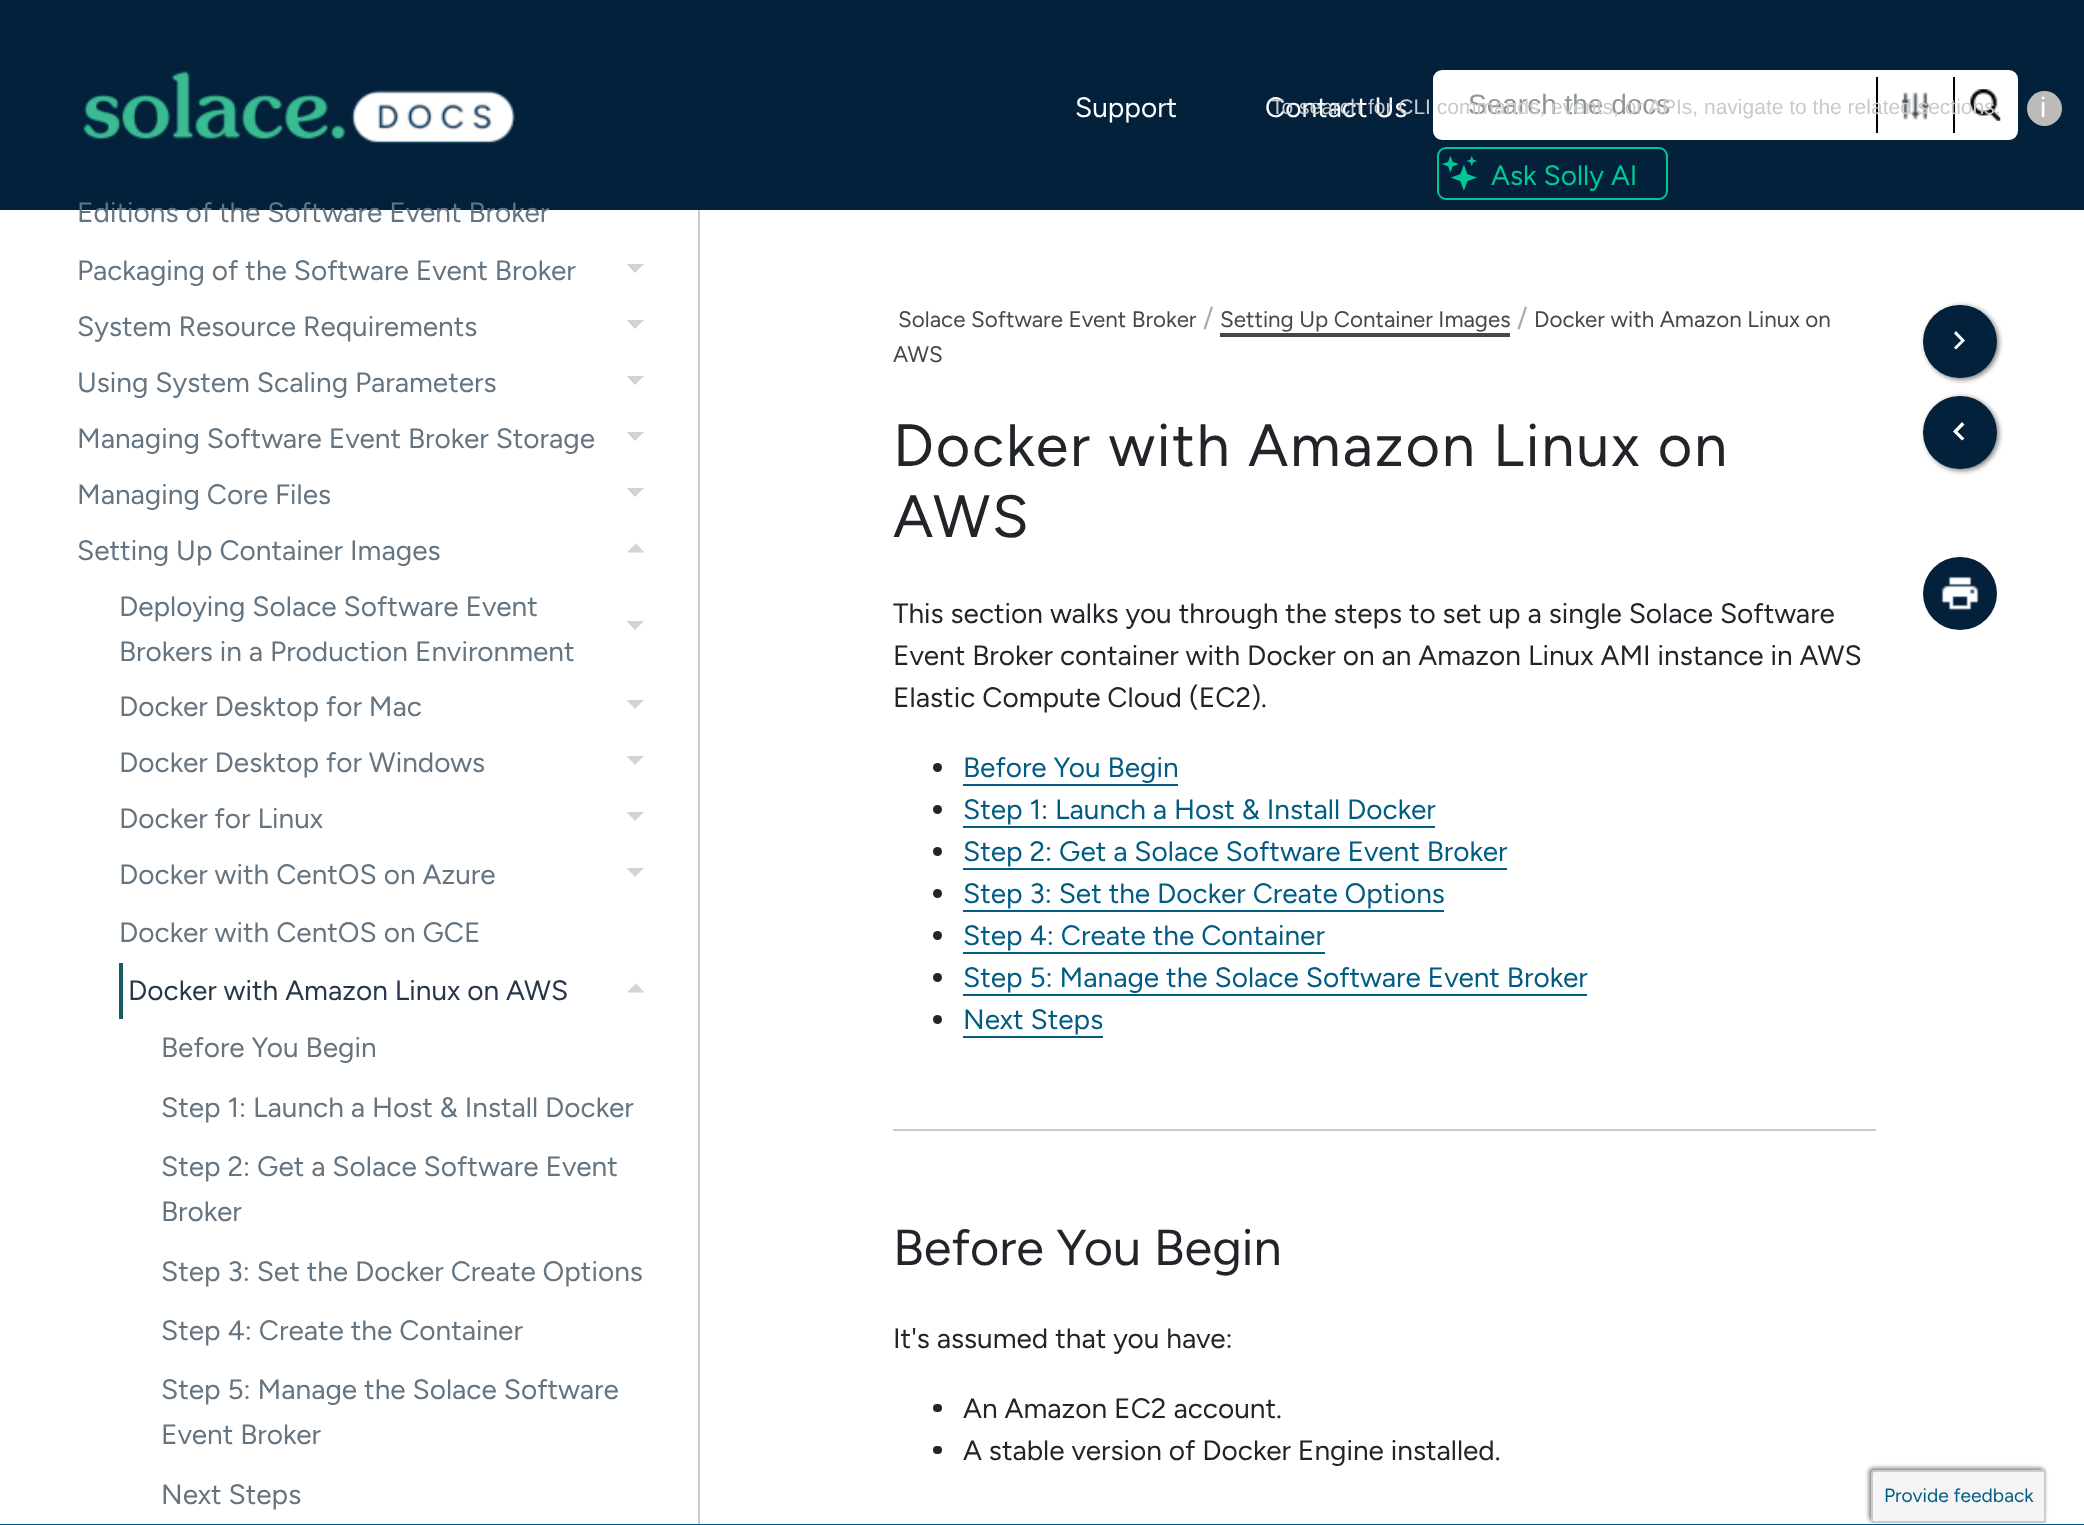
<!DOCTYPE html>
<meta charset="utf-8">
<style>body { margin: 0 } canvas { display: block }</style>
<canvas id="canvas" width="2084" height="1525"></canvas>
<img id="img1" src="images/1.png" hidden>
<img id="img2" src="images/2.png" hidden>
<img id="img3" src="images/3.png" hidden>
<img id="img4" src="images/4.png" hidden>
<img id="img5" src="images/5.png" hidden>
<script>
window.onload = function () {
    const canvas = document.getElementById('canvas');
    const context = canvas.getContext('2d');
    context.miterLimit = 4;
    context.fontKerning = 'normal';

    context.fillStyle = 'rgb(255, 255, 255)';
    context.fillRect(0, 0, 2084, 1525);
    context.fillStyle = 'rgb(3, 33, 59)';
    context.fillRect(0, 0, 2084, 210);
    context.fillStyle = 'rgb(255, 255, 255)';
    context.beginPath();
    context.roundRect(1433, 70, 585, 70, 9);
    context.fill();
    context.drawImage(document.getElementById('img1'), 1901, 92, 29, 28);
    context.fillStyle = 'rgb(0, 0, 0)';
    context.fillRect(1953, 77, 2, 56);
    context.fillRect(1876, 77, 2, 56);
    context.drawImage(document.getElementById('img2'), 1970, 89, 31, 32);
    context.fillStyle = 'rgb(187, 187, 187)';
    context.beginPath();
    context.arc(2044.5, 108.5, 17.5, 0, 2 * Math.PI);
    context.fill();
    context.beginPath();
    context.roundRect(1438, 148, 229, 51, 8);
    context.strokeStyle = 'rgb(0, 200, 149)';
    context.lineWidth = 2;
    context.stroke();
    context.drawImage(document.getElementById('img3'), 1442, 156, 35, 35);
    context.drawImage(document.getElementById('img4'), 83, 71, 432, 73);
    context.fillStyle = 'rgb(203, 203, 203)';
    context.fillRect(698, 210, 2, 1314);
    context.fillStyle = 'rgb(211, 211, 211)';
    context.beginPath();
    context.moveTo(626.5, 264);
    context.lineTo(644, 264);
    context.lineTo(635, 273);
    context.closePath();
    context.fill();
    context.beginPath();
    context.moveTo(626.5, 320);
    context.lineTo(644, 320);
    context.lineTo(635, 329);
    context.closePath();
    context.fill();
    context.beginPath();
    context.moveTo(626.5, 376);
    context.lineTo(644, 376);
    context.lineTo(635, 385);
    context.closePath();
    context.fill();
    context.beginPath();
    context.moveTo(626.5, 432);
    context.lineTo(644, 432);
    context.lineTo(635, 441);
    context.closePath();
    context.fill();
    context.beginPath();
    context.moveTo(626.5, 488);
    context.lineTo(644, 488);
    context.lineTo(635, 497);
    context.closePath();
    context.fill();
    context.beginPath();
    context.moveTo(644.5, 552.5);
    context.lineTo(627, 552.5);
    context.lineTo(636, 543.5);
    context.closePath();
    context.fill();
    context.beginPath();
    context.moveTo(626.5, 621);
    context.lineTo(644, 621);
    context.lineTo(635, 630);
    context.closePath();
    context.fill();
    context.beginPath();
    context.moveTo(626.5, 700);
    context.lineTo(644, 700);
    context.lineTo(635, 709);
    context.closePath();
    context.fill();
    context.beginPath();
    context.moveTo(626.5, 756);
    context.lineTo(644, 756);
    context.lineTo(635, 765);
    context.closePath();
    context.fill();
    context.beginPath();
    context.moveTo(626.5, 812);
    context.lineTo(644, 812);
    context.lineTo(635, 821);
    context.closePath();
    context.fill();
    context.beginPath();
    context.moveTo(626.5, 868);
    context.lineTo(644, 868);
    context.lineTo(635, 877);
    context.closePath();
    context.fill();
    context.fillStyle = 'rgb(22, 94, 100)';
    context.fillRect(119, 963, 4, 56);
    context.fillStyle = 'rgb(211, 211, 211)';
    context.beginPath();
    context.moveTo(644.5, 992.5);
    context.lineTo(627, 992.5);
    context.lineTo(636, 983.5);
    context.closePath();
    context.fill();
    context.fillStyle = 'rgba(0, 0, 0, 0.5)';
    context.filter = 'blur(2.5px)';
    context.beginPath();
    context.roundRect(1925, 306, 74, 74, 37);
    context.fill();
    context.filter = 'none';
    context.fillStyle = 'rgb(3, 33, 59)';
    context.beginPath();
    context.roundRect(1923, 305, 74, 73, 36.5);
    context.fill();
    context.fillStyle = 'rgb(255, 255, 255)';
    context.beginPath();
    context.moveTo(1956, 331);
    context.lineTo(1965, 340.5);
    context.lineTo(1956, 349.5);
    context.lineTo(1954, 347.5);
    context.lineTo(1961, 340.5);
    context.lineTo(1954, 333.5);
    context.closePath();
    context.fill();
    context.fillStyle = 'rgba(0, 0, 0, 0.5)';
    context.filter = 'blur(2.5px)';
    context.beginPath();
    context.roundRect(1925, 397, 74, 74, 37);
    context.fill();
    context.filter = 'none';
    context.fillStyle = 'rgb(3, 33, 59)';
    context.beginPath();
    context.roundRect(1923, 396, 74, 73, 36.5);
    context.fill();
    context.fillStyle = 'rgb(255, 255, 255)';
    context.beginPath();
    context.moveTo(1964.5, 424.5);
    context.lineTo(1957.5, 431.5);
    context.lineTo(1964.5, 438.5);
    context.lineTo(1962, 440.5);
    context.lineTo(1953, 431.5);
    context.lineTo(1962, 422);
    context.closePath();
    context.fill();
    context.fillStyle = 'rgb(3, 33, 59)';
    context.beginPath();
    context.roundRect(1923, 557, 74, 73, 36.5);
    context.fill();
    context.drawImage(document.getElementById('img5'), 1941, 576, 38, 35);
    context.fillStyle = 'rgb(71, 71, 71)';
    context.fillRect(1220, 333, 290, 4);
    context.fillStyle = 'rgb(33, 37, 41)';
    context.beginPath();
    context.arc(937.5, 767.5, 4.5, 0, 2 * Math.PI);
    context.fill();
    context.fillStyle = 'rgb(1, 91, 130)';
    context.fillRect(963, 784, 215, 2);
    context.fillStyle = 'rgb(33, 37, 41)';
    context.beginPath();
    context.arc(937.5, 809.5, 4.5, 0, 2 * Math.PI);
    context.fill();
    context.fillStyle = 'rgb(1, 91, 130)';
    context.fillRect(963, 826, 472, 2);
    context.fillStyle = 'rgb(33, 37, 41)';
    context.beginPath();
    context.arc(937.5, 851.5, 4.5, 0, 2 * Math.PI);
    context.fill();
    context.fillStyle = 'rgb(1, 91, 130)';
    context.fillRect(963, 868, 544, 2);
    context.fillStyle = 'rgb(33, 37, 41)';
    context.beginPath();
    context.arc(937.5, 893.5, 4.5, 0, 2 * Math.PI);
    context.fill();
    context.fillStyle = 'rgb(1, 91, 130)';
    context.fillRect(963, 910, 481, 2);
    context.fillStyle = 'rgb(33, 37, 41)';
    context.beginPath();
    context.arc(937.5, 935.5, 4.5, 0, 2 * Math.PI);
    context.fill();
    context.fillStyle = 'rgb(1, 91, 130)';
    context.fillRect(963, 952, 362, 2);
    context.fillStyle = 'rgb(33, 37, 41)';
    context.beginPath();
    context.arc(937.5, 977.5, 4.5, 0, 2 * Math.PI);
    context.fill();
    context.fillStyle = 'rgb(1, 91, 130)';
    context.fillRect(963, 994, 624, 2);
    context.fillStyle = 'rgb(33, 37, 41)';
    context.beginPath();
    context.arc(937.5, 1019.5, 4.5, 0, 2 * Math.PI);
    context.fill();
    context.fillStyle = 'rgb(1, 91, 130)';
    context.fillRect(963, 1036, 140, 2);
    context.fillStyle = 'rgb(200, 202, 204)';
    context.fillRect(893, 1129, 983, 2);
    context.fillStyle = 'rgb(33, 37, 41)';
    context.beginPath();
    context.roundRect(933, 1404, 9, 8, 4);
    context.fill();
    context.beginPath();
    context.roundRect(933, 1446, 9, 8, 4);
    context.fill();
    context.fillStyle = 'rgb(1, 91, 130)';
    context.fillRect(0, 1524, 2084, 1);
    context.fillStyle = 'rgba(0, 0, 0, 0.5)';
    context.filter = 'blur(2px)';
    context.beginPath();
    context.roundRect(1869, 1468, 175, 53, 4);
    context.fill();
    context.filter = 'none';
    context.fillStyle = 'rgb(245, 245, 245)';
    context.beginPath();
    context.roundRect(1872, 1471, 173, 51, [3, 0, 0, 0]);
    context.fill();
    context.strokeStyle = 'rgb(204, 204, 204)';
    context.stroke();
    context.font = '28px Figtree';
    context.fillStyle = 'rgb(255, 255, 255)';
    context.fillText('Support', 1075, 117);
    context.fillText('Contact Us', 1265, 117);
    context.font = '28px Liberation Sans';
    context.fillStyle = 'rgb(145, 148, 150)';
    context.fillText('Search the docs', 1468, 114);
    context.font = '21px Liberation Sans';
    context.fillStyle = 'rgb(198, 203, 207)';
    context.fillText('To search for CLI commands, events, or APIs, navigate to the related sections.', 1271, 114);
    context.font = '28px Liberation Sans';
    context.fillStyle = 'rgb(255, 255, 255)';
    context.fillText('i', 2040, 117);
    context.font = '28px Figtree';
    context.fillStyle = 'rgb(0, 200, 149)';
    context.fillText('Ask Solly AI', 1491, 185);
    context.fillStyle = 'rgb(100, 116, 129)';
    context.fillText('Editions of the Software Event Broker', 77, 222);
    context.fillText('Packaging of the Software Event Broker', 77, 280);
    context.fillText('System Resource Requirements', 77, 336);
    context.fillText('Using System Scaling Parameters', 77, 392);
    context.fillText('Managing Software Event Broker Storage', 77, 448);
    context.fillText('Managing Core Files', 77, 504);
    context.fillText('Setting Up Container Images', 77, 560);
    context.fillText('Deploying Solace Software Event', 119, 616);
    context.fillText('Brokers in a Production Environment', 119, 661);
    context.fillText('Docker Desktop for Mac', 119, 716);
    context.fillText('Docker Desktop for Windows', 119, 772);
    context.fillText('Docker for Linux', 119, 828);
    context.fillText('Docker with CentOS on Azure', 119, 884);
    context.fillText('Docker with CentOS on GCE', 119, 942);
    context.fillStyle = 'rgb(39, 55, 73)';
    context.fillText('Docker with Amazon Linux on AWS', 128, 1000);
    context.fillStyle = 'rgb(100, 116, 129)';
    context.fillText('Before You Begin', 161, 1057);
    context.fillText('Step 1: Launch a Host & Install Docker', 161, 1117);
    context.fillText('Step 2: Get a Solace Software Event', 161, 1176);
    context.fillText('Broker', 161, 1221);
    context.fillText('Step 3: Set the Docker Create Options', 161, 1281);
    context.fillText('Step 4: Create the Container', 161, 1340);
    context.fillText('Step 5: Manage the Solace Software', 161, 1399);
    context.fillText('Event Broker', 161, 1444);
    context.fillText('Next Steps', 161, 1504);
    context.font = '22.4px Figtree';
    context.fillStyle = 'rgb(71, 71, 71)';
    context.fillText('Solace Software Event Broker', 898, 327);
    context.font = '27px Figtree';
    context.fillStyle = 'rgb(170, 170, 170)';
    context.fillText('/', 1203, 327);
    context.font = '22.4px Figtree';
    context.fillStyle = 'rgb(71, 71, 71)';
    context.fillText('Setting Up Container Images', 1220, 327);
    context.font = '27px Figtree';
    context.fillStyle = 'rgb(170, 170, 170)';
    context.fillText('/', 1517, 327);
    context.font = '22.4px Figtree';
    context.fillStyle = 'rgb(71, 71, 71)';
    context.fillText('Docker with Amazon Linux on', 1534, 327);
    context.fillText('AWS', 893, 362);
    context.letterSpacing = '1.75px';
    context.font = '59.5px Figtree';
    context.fillStyle = 'rgb(33, 37, 41)';
    context.fillText('Docker with Amazon Linux on', 893, 466);
    context.fillText('AWS', 893, 537);
    context.letterSpacing = '0px';
    context.font = '28px Figtree';
    context.fillText('This section walks you through the steps to set up a single Solace Software', 893, 623);
    context.fillText('Event Broker container with Docker on an Amazon Linux AMI instance in AWS', 893, 665);
    context.fillText('Elastic Compute Cloud (EC2).', 893, 707);
    context.fillStyle = 'rgb(1, 91, 130)';
    context.fillText('Before You Begin', 963, 777);
    context.fillText('Step 1: Launch a Host & Install Docker', 963, 819);
    context.fillText('Step 2: Get a Solace Software Event Broker', 963, 861);
    context.fillText('Step 3: Set the Docker Create Options', 963, 903);
    context.fillText('Step 4: Create the Container', 963, 945);
    context.fillText('Step 5: Manage the Solace Software Event Broker', 963, 987);
    context.fillText('Next Steps', 963, 1029);
    context.font = '50.5px Figtree';
    context.fillStyle = 'rgb(33, 37, 41)';
    context.fillText('Before You Begin', 893, 1265);
    context.font = '28px Figtree';
    context.fillText('It\'s assumed that you have:', 893, 1348);
    context.fillText('An Amazon EC2 account.', 963, 1418);
    context.fillText('A stable version of Docker Engine installed.', 963, 1460);
    context.font = '19.25px Figtree';
    context.fillStyle = 'rgb(1, 91, 130)';
    context.fillText('Provide feedback', 1884, 1502);
};
</script>
